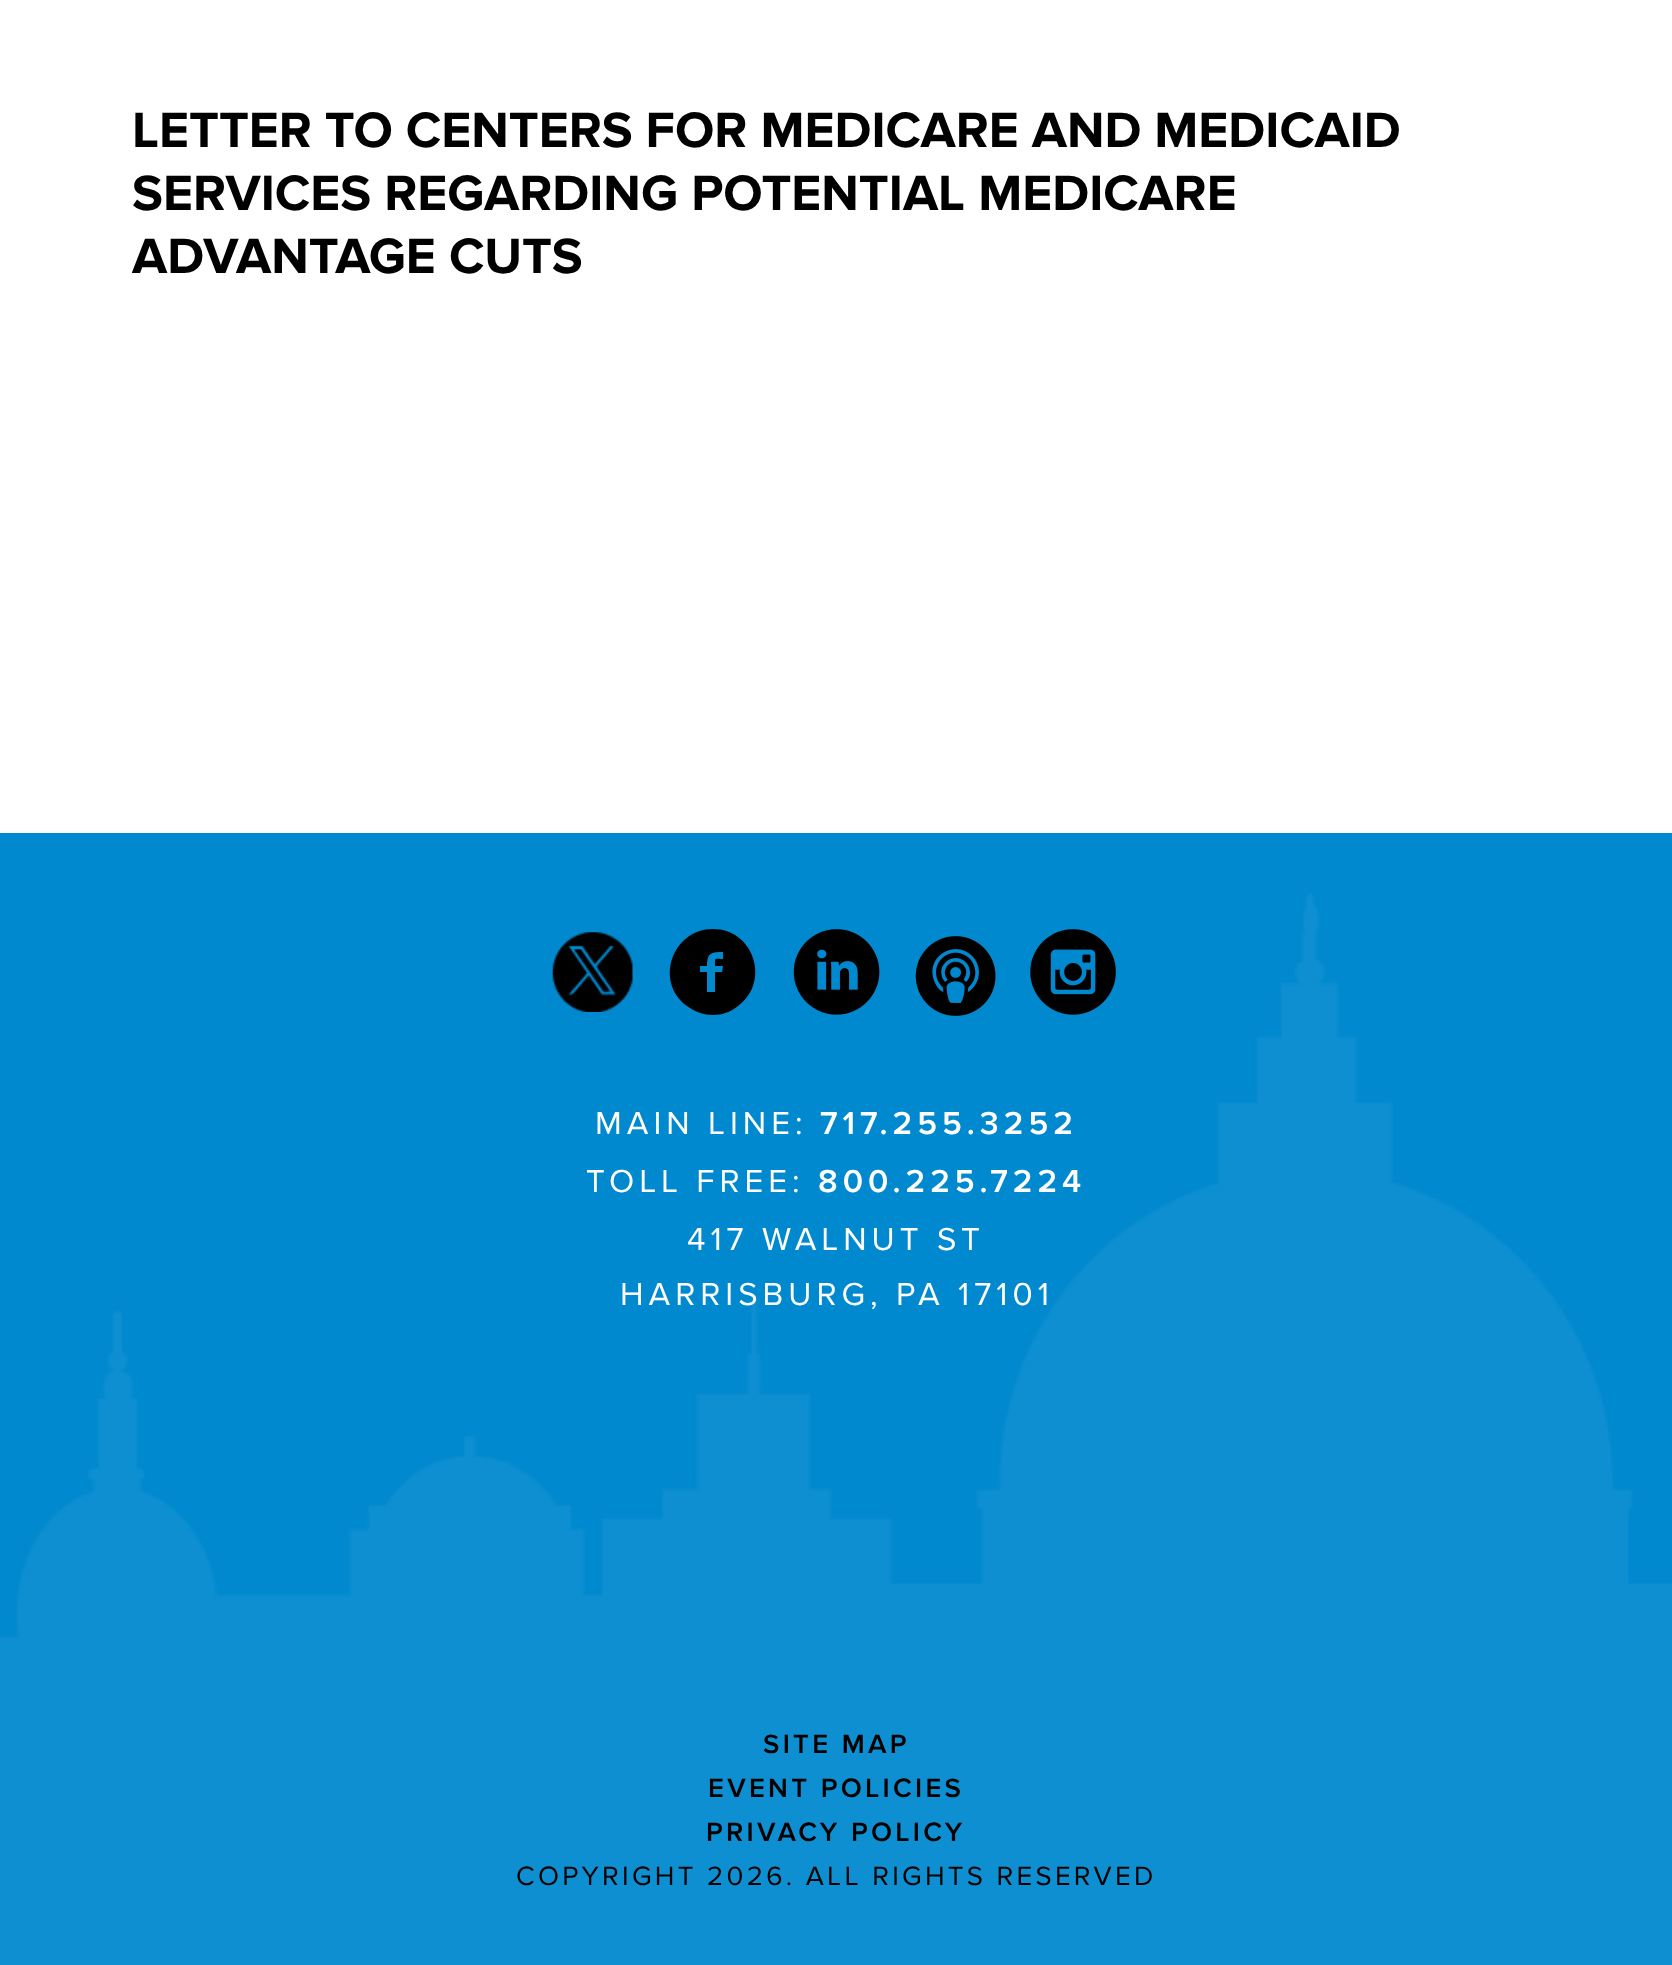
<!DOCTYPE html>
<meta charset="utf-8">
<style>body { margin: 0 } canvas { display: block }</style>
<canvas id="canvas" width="1672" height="1965"></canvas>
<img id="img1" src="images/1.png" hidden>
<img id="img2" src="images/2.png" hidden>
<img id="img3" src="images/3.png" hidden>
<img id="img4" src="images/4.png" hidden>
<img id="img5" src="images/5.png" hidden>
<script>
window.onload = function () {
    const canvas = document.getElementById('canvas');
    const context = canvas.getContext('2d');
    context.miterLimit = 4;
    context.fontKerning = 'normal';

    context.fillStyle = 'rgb(255, 255, 255)';
    context.fillRect(0, 0, 1672, 1965);
    context.fillStyle = 'rgb(0, 137, 207)';
    context.fillRect(0, 833, 1672, 1132);
    context.drawImage(document.getElementById('img1'), 0, 893, 1672, 1072);
    context.drawImage(document.getElementById('img2'), 552, 932, 81, 80);
    context.fillStyle = 'rgb(0, 0, 0)';
    context.beginPath();
    context.moveTo(713, 929);
    context.bezierCurveTo(672, 929, 654, 982, 687, 1006);
    context.bezierCurveTo(695, 1012, 704, 1015, 713, 1015);
    context.bezierCurveTo(722, 1015, 731, 1012, 738, 1006);
    context.bezierCurveTo(771, 982, 754, 929, 713, 929);
    context.closePath();
    context.moveTo(723, 959);
    context.bezierCurveTo(714, 959, 715, 957, 715, 966);
    context.lineTo(723, 966);
    context.lineTo(722, 972);
    context.lineTo(715, 972);
    context.lineTo(715, 992);
    context.lineTo(707, 992);
    context.lineTo(707, 972);
    context.lineTo(700, 972);
    context.lineTo(700, 966);
    context.lineTo(707, 966);
    context.bezierCurveTo(707, 953, 711, 952, 723, 952);
    context.closePath();
    context.fill();
    context.drawImage(document.getElementById('img3'), 793, 929, 87, 86);
    context.drawImage(document.getElementById('img4'), 915, 936, 81, 80);
    context.drawImage(document.getElementById('img5'), 1030, 929, 86, 86);
    context.wordSpacing = '-0.25px';
    context.font = 'bold 51.5px Proxima Nova';
    context.fillText('LETTER TO CENTERS FOR MEDICARE AND MEDICAID', 132, 147);
    context.wordSpacing = '0px';
    context.fillText('SERVICES REGARDING POTENTIAL MEDICARE', 132, 210);
    context.fillText('ADVANTAGE CUTS', 132, 273);
    context.letterSpacing = '5px';
    context.font = '33px Proxima Nova';
    context.fillStyle = 'rgb(255, 255, 255)';
    context.fillText('MAIN LINE:', 595, 1134);
    context.font = '600 33px Proxima Nova';
    context.fillText('717.255.3252', 820, 1134);
    context.font = '33px Proxima Nova';
    context.fillText('TOLL FREE:', 586, 1192);
    context.font = '600 33px Proxima Nova';
    context.fillText('800.225.7224', 818, 1192);
    context.font = '33px Proxima Nova';
    context.fillText('417 WALNUT ST', 687, 1250);
    context.fillText('HARRISBURG, PA 17101', 620, 1305);
    context.letterSpacing = '3.3px';
    context.font = '600 27.5px Proxima Nova';
    context.fillStyle = 'rgb(0, 0, 0)';
    context.fillText('SITE MAP', 763, 1753);
    context.fillText('EVENT POLICIES', 708, 1797);
    context.fillText('PRIVACY POLICY', 706, 1841);
    context.font = '27.5px Proxima Nova';
    context.fillText('COPYRIGHT 2026. ALL RIGHTS RESERVED', 516, 1885);
};
</script>
